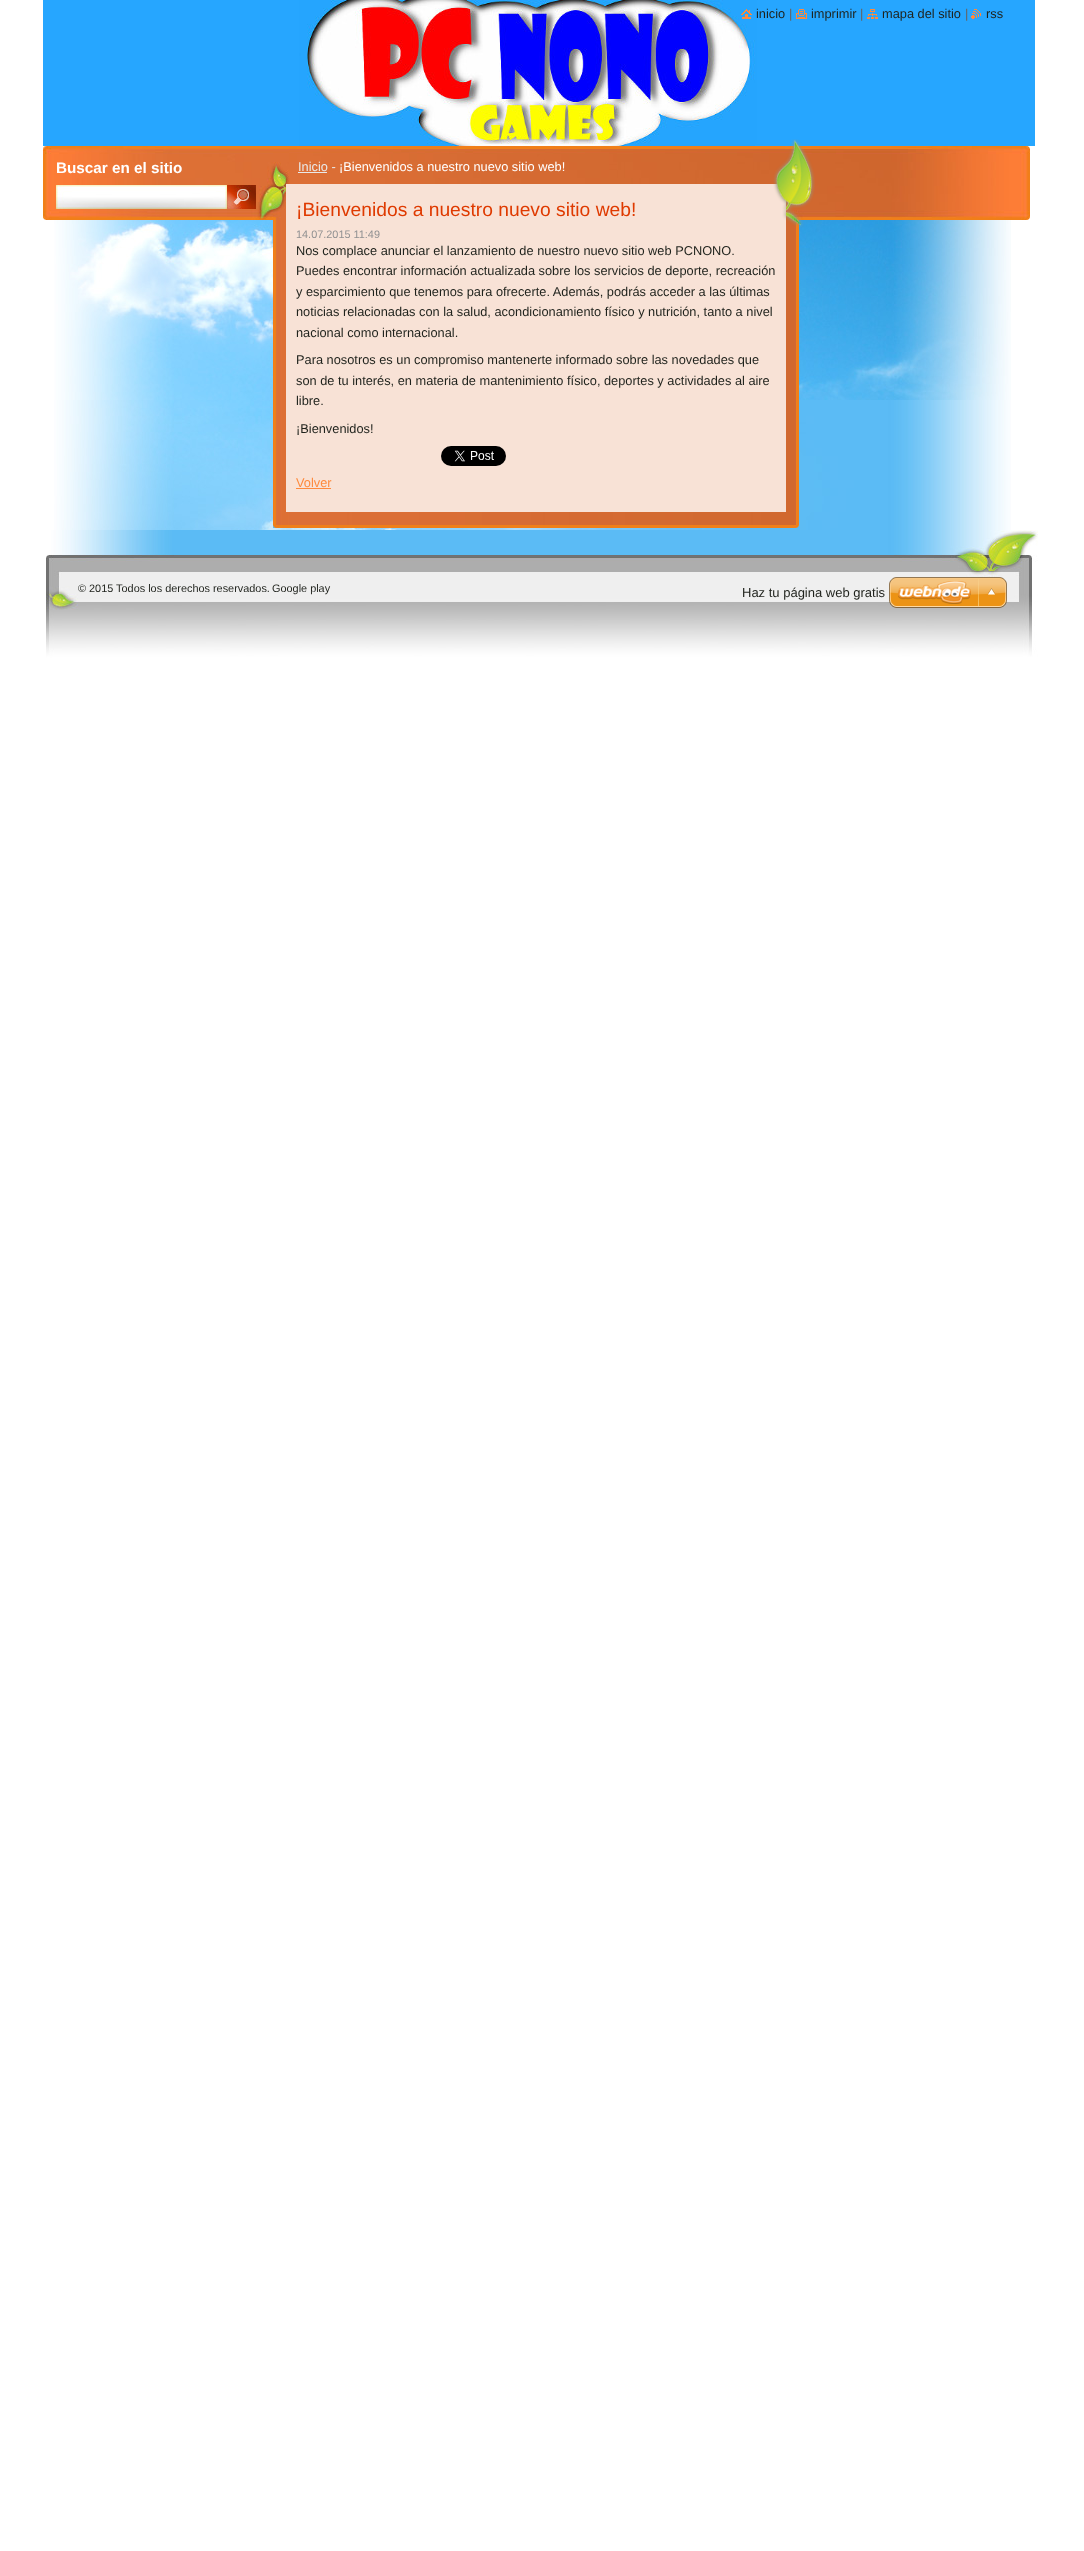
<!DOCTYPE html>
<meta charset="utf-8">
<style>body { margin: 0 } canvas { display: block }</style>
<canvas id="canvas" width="1084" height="2551"></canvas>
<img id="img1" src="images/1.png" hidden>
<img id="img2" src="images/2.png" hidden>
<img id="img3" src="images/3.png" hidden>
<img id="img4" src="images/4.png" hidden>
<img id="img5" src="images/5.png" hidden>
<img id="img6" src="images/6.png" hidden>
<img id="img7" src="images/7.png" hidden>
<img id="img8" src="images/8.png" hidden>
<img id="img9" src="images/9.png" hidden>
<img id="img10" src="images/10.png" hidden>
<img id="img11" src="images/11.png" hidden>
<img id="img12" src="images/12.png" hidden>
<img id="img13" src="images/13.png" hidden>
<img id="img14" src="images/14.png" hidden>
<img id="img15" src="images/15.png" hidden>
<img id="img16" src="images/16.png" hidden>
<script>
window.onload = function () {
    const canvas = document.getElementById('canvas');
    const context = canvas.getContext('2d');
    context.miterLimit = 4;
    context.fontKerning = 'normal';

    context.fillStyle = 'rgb(255, 255, 255)';
    context.fillRect(0, 0, 1084, 2551);
    context.drawImage(document.getElementById('img1'), 54, 220, 957, 310);
    context.drawImage(document.getElementById('img2'), 43, 0, 992, 146);
    context.drawImage(document.getElementById('img3'), 741, 9, 11, 10);
    context.drawImage(document.getElementById('img4'), 796, 9, 11, 10);
    context.drawImage(document.getElementById('img5'), 867, 9, 11, 10);
    context.drawImage(document.getElementById('img6'), 971, 9, 10, 10);
    context.drawImage(document.getElementById('img7'), 43, 146, 987, 74);
    context.drawImage(document.getElementById('img8'), 56, 185, 171, 24);
    context.drawImage(document.getElementById('img9'), 227, 185, 29, 24);
    context.drawImage(document.getElementById('img10'), 273, 220, 526, 305);
    context.drawImage(document.getElementById('img11'), 273, 146, 526, 74);
    context.fillStyle = 'rgb(233, 233, 233)';
    context.fillRect(298, 172, 29, 1);
    context.fillStyle = 'rgb(248, 226, 214)';
    context.fillRect(286, 184, 500, 328);
    context.drawImage(document.getElementById('img12'), 441, 446, 65, 20);
    context.fillStyle = 'rgb(254, 138, 61)';
    context.fillRect(296, 488, 35, 1);
    context.drawImage(document.getElementById('img13'), 273, 525, 526, 3);
    context.drawImage(document.getElementById('img14'), 773, 139, 42, 89);
    context.drawImage(document.getElementById('img15'), 46, 530, 992, 128);
    context.drawImage(document.getElementById('img16'), 889, 577, 118, 31);
    context.font = '12.8px Liberation Sans';
    context.fillStyle = 'rgb(31, 34, 28)';
    context.fillText('inicio', 756, 18);
    context.fillStyle = 'rgb(100, 100, 100)';
    context.fillText('|', 789, 18);
    context.fillStyle = 'rgb(31, 34, 28)';
    context.fillText('imprimir', 811, 18);
    context.fillStyle = 'rgb(100, 100, 100)';
    context.fillText('|', 860, 18);
    context.fillStyle = 'rgb(31, 34, 28)';
    context.fillText('mapa del sitio', 882, 18);
    context.fillStyle = 'rgb(100, 100, 100)';
    context.fillText('|', 965, 18);
    context.fillStyle = 'rgb(31, 34, 28)';
    context.fillText('rss', 986, 18);
    context.font = 'bold 15.25px Liberation Sans';
    context.fillStyle = 'rgb(255, 255, 255)';
    context.fillText('Buscar en el sitio', 56, 173);
    context.font = '12.8px Liberation Sans';
    context.fillStyle = 'rgb(233, 233, 233)';
    context.fillText('Inicio -', 298, 171);
    context.fillStyle = 'rgb(255, 255, 255)';
    context.fillText('¡Bienvenidos a nuestro nuevo sitio web!', 339, 171);
    context.font = '19.25px Liberation Sans';
    context.fillStyle = 'rgb(223, 58, 0)';
    context.fillText('¡Bienvenidos a nuestro nuevo sitio web!', 296, 216);
    context.font = '10.9px Liberation Sans';
    context.fillStyle = 'rgb(145, 145, 146)';
    context.fillText('14.07.2015 11:49', 296, 238);
    context.font = '12.8px Liberation Sans';
    context.fillStyle = 'rgb(31, 34, 28)';
    context.fillText('Nos complace anunciar el lanzamiento de nuestro nuevo sitio web PCNONO.', 296, 255);
    context.fillText('Puedes encontrar información actualizada sobre los servicios de deporte, recreación', 296, 275);
    context.fillText('y esparcimiento que tenemos para ofrecerte. Además, podrás acceder a las últimas', 296, 296);
    context.fillText('noticias relacionadas con la salud, acondicionamiento físico y nutrición, tanto a nivel', 296, 316);
    context.fillText('nacional como internacional.', 296, 337);
    context.fillText('Para nosotros es un compromiso mantenerte informado sobre las novedades que', 296, 364);
    context.fillText('son de tu interés, en materia de mantenimiento físico, deportes y actividades al aire', 296, 385);
    context.fillText('libre.', 296, 405);
    context.fillText('¡Bienvenidos!', 296, 433);
    context.fillStyle = 'rgb(254, 138, 61)';
    context.fillText('Volver', 296, 487);
    context.save();
    context.beginPath();
    context.rect(78, 581, 450, 16);
    context.clip();
    context.font = '10.9px Liberation Sans';
    context.fillStyle = 'rgb(31, 34, 28)';
    context.fillText('© 2015 Todos los derechos reservados.', 78, 592);
    context.restore();
    context.font = '10.9px Liberation Sans';
    context.fillStyle = 'rgb(31, 34, 28)';
    context.fillText('Google play', 272, 592);
    context.font = '13px Liberation Sans';
    context.fillText('Haz tu página web gratis', 742, 597);
};
</script>
